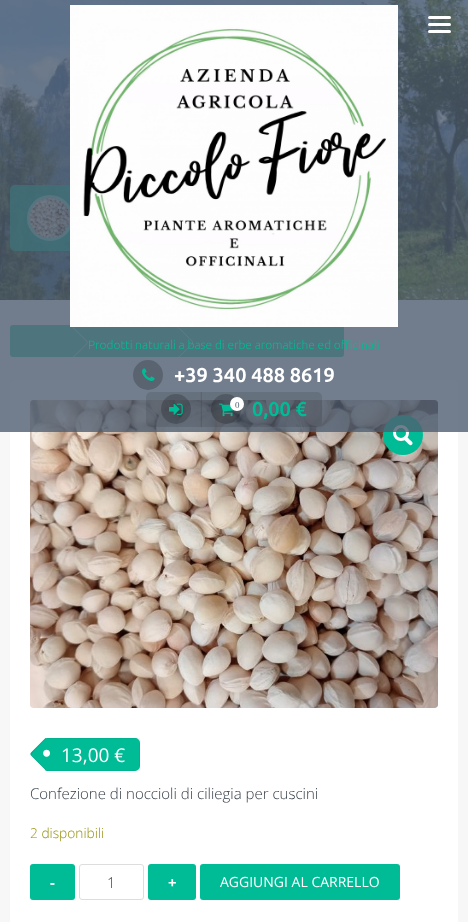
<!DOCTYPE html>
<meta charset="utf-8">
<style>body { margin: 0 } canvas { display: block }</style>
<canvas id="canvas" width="468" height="922"></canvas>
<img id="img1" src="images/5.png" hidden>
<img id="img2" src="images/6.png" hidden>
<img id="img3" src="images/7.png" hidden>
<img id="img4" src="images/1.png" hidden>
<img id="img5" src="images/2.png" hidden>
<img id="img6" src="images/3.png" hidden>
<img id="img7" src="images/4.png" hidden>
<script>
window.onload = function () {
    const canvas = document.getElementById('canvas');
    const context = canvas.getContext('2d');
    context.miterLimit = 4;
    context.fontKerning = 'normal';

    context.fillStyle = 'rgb(247, 247, 247)';
    context.fillRect(0, 0, 468, 922);
    context.drawImage(document.getElementById('img1'), 0, 0, 468, 300);
    context.fillStyle = 'rgba(0, 188, 150, 0.8)';
    context.beginPath();
    context.roundRect(10, 185, 281, 66, 5);
    context.fill();
    context.beginPath();
    context.arc(50, 218, 21.5, 0, 2 * Math.PI);
    context.strokeStyle = 'rgba(255, 255, 255, 0.45)';
    context.lineWidth = 3;
    context.stroke();
    context.fillStyle = 'rgb(255, 255, 255)';
    context.beginPath();
    context.arc(50, 218, 20, 0, 2 * Math.PI);
    context.fill();
    context.drawImage(document.getElementById('img2'), 30, 198, 40, 40);
    context.fillStyle = 'rgb(74, 206, 179)';
    context.beginPath();
    context.roundRect(10, 325, 334, 32, 3);
    context.fill();
    context.fillStyle = 'rgba(255, 255, 255, 0.6)';
    context.beginPath();
    context.moveTo(74.5, 328.5);
    context.lineTo(86.5, 340.5);
    context.bezierCurveTo(88, 341.5, 88, 343.5, 86.5, 344.5);
    context.lineTo(74.5, 356.5);
    context.bezierCurveTo(73.5, 358, 71.5, 358, 70.5, 356.5);
    context.lineTo(58.5, 344.5);
    context.bezierCurveTo(57.5, 343.5, 57.5, 341.5, 58.5, 340.5);
    context.lineTo(70.5, 328.5);
    context.bezierCurveTo(71.5, 327, 73.5, 327, 74.5, 328.5);
    context.closePath();
    context.moveTo(74, 329);
    context.lineTo(86, 341);
    context.bezierCurveTo(87, 342, 87, 343, 86, 344);
    context.lineTo(74, 356);
    context.bezierCurveTo(73, 357, 71, 357.5, 70.5, 356.5);
    context.lineTo(58.5, 344.5);
    context.bezierCurveTo(57.5, 343.5, 57.5, 341.5, 58.5, 340.5);
    context.lineTo(70.5, 328.5);
    context.bezierCurveTo(71, 327.5, 73, 328, 74, 329);
    context.closePath();
    context.fill('evenodd');
    context.beginPath();
    context.moveTo(180, 328.5);
    context.lineTo(192, 340.5);
    context.bezierCurveTo(193.5, 341.5, 193.5, 343.5, 192, 344.5);
    context.lineTo(180, 356.5);
    context.bezierCurveTo(179, 358, 177, 358, 176, 356.5);
    context.lineTo(164, 344.5);
    context.bezierCurveTo(163, 343.5, 163, 341.5, 164, 340.5);
    context.lineTo(176, 328.5);
    context.bezierCurveTo(177, 327, 179, 327, 180, 328.5);
    context.closePath();
    context.moveTo(179.5, 329);
    context.lineTo(191.5, 341);
    context.bezierCurveTo(192.5, 342, 192.5, 343, 191.5, 344);
    context.lineTo(179.5, 356);
    context.bezierCurveTo(178.5, 357, 177, 357.5, 176, 356.5);
    context.lineTo(164, 344.5);
    context.bezierCurveTo(163, 343.5, 163, 341.5, 164, 340.5);
    context.lineTo(176, 328.5);
    context.bezierCurveTo(177, 327.5, 178.5, 328, 179.5, 329);
    context.closePath();
    context.fill('evenodd');
    context.fillStyle = 'rgb(255, 255, 255)';
    context.beginPath();
    context.roundRect(10, 380, 448, 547, 5);
    context.fill();
    context.drawImage(document.getElementById('img3'), 30, 400, 408, 308);
    context.fillStyle = 'rgb(0, 188, 150)';
    context.beginPath();
    context.arc(403, 435, 20, 0, 2 * Math.PI);
    context.fill();
    context.beginPath();
    context.arc(401, 433, 6.5, 0, 2 * Math.PI);
    context.strokeStyle = 'rgb(255, 255, 255)';
    context.stroke();
    context.fillStyle = 'rgba(79, 94, 112, 0.8)';
    context.fillRect(0, 0, 468, 432);
    context.drawImage(document.getElementById('img4'), 70, 5, 328, 322);
    context.fillStyle = 'rgb(255, 255, 255)';
    context.beginPath();
    context.roundRect(428, 23, 23, 3, 1.5);
    context.fill();
    context.beginPath();
    context.roundRect(428, 16, 23, 3, 1.5);
    context.fill();
    context.beginPath();
    context.roundRect(428, 30, 23, 3, 1.5);
    context.fill();
    context.fillStyle = 'rgb(90, 100, 112)';
    context.beginPath();
    context.arc(148, 375, 15, 0, 2 * Math.PI);
    context.fill();
    context.drawImage(document.getElementById('img5'), 142, 368, 13, 13);
    context.fillStyle = 'rgba(0, 0, 0, 0.1)';
    context.beginPath();
    context.roundRect(146, 392, 56, 35, [5, 0, 0, 5]);
    context.fill();
    context.fillStyle = 'rgba(0, 0, 0, 0.2)';
    context.beginPath();
    context.arc(176, 409, 15, 0, 2 * Math.PI);
    context.fill();
    context.drawImage(document.getElementById('img6'), 169, 403, 14, 12);
    context.fillStyle = 'rgba(0, 0, 0, 0.1)';
    context.beginPath();
    context.roundRect(200, 392, 122, 35, [0, 5, 5, 0]);
    context.fill();
    context.fillStyle = 'rgba(255, 255, 255, 0.05)';
    context.fillRect(200, 392, 1, 35);
    context.fillStyle = 'rgba(0, 0, 0, 0.2)';
    context.beginPath();
    context.arc(226, 409, 15, 0, 2 * Math.PI);
    context.fill();
    context.drawImage(document.getElementById('img7'), 219, 403, 15, 14);
    context.fillStyle = 'rgb(255, 255, 255)';
    context.beginPath();
    context.arc(237, 404, 7, 0, 2 * Math.PI);
    context.fill();
    context.beginPath();
    context.moveTo(404, 437);
    context.bezierCurveTo(406, 435, 408, 438, 409.5, 439.5);
    context.bezierCurveTo(410.5, 440.5, 414, 442.5, 412, 444.5);
    context.bezierCurveTo(410, 446.5, 408, 443.5, 406.5, 442);
    context.bezierCurveTo(405.5, 441, 402, 438.5, 404, 437);
    context.closePath();
    context.fill();
    context.fillStyle = 'rgb(0, 188, 150)';
    context.beginPath();
    context.roundRect(45, 738, 95, 33, [2, 5, 5, 2]);
    context.fill();
    context.strokeStyle = 'rgba(0, 0, 0, 0.05)';
    context.lineWidth = 1;
    context.strokeRect(45.5, 738.5, 94, 32);
    context.beginPath();
    context.moveTo(46, 738.5);
    context.lineTo(62, 754);
    context.lineTo(46, 769.5);
    context.bezierCurveTo(46, 770, 45, 770, 45, 769.5);
    context.lineTo(31.5, 756);
    context.bezierCurveTo(30, 755, 30, 753, 31.5, 752);
    context.lineTo(45, 738.5);
    context.bezierCurveTo(45, 738, 46, 738, 46, 738.5);
    context.closePath();
    context.fill();
    context.fillStyle = 'rgba(0, 0, 0, 0.1)';
    context.beginPath();
    context.moveTo(46, 738.5);
    context.lineTo(62, 754);
    context.lineTo(46, 769.5);
    context.bezierCurveTo(46, 770, 45, 770, 45, 769.5);
    context.lineTo(31.5, 756);
    context.bezierCurveTo(30, 755, 30, 753, 31.5, 752);
    context.lineTo(45, 738.5);
    context.bezierCurveTo(45, 738, 46, 738, 46, 738.5);
    context.closePath();
    context.moveTo(46, 738.5);
    context.lineTo(62, 754);
    context.lineTo(46, 769.5);
    context.lineTo(36.5, 760);
    context.bezierCurveTo(31.5, 755, 29.5, 755.5, 34.5, 750.5);
    context.closePath();
    context.fill('evenodd');
    context.fillStyle = 'rgb(0, 188, 150)';
    context.beginPath();
    context.roundRect(30, 864, 45, 36, 3);
    context.fill();
    context.beginPath();
    context.roundRect(79.5, 864.5, 64, 35, 2.5);
    context.strokeStyle = 'rgb(221, 221, 221)';
    context.stroke();
    context.beginPath();
    context.roundRect(148, 864, 48, 36, 3);
    context.fill();
    context.beginPath();
    context.roundRect(200, 864, 200, 36, 3);
    context.fill();
    context.font = '300 12px Ubuntu';
    context.fillText('Prodotti naturali a base di erbe aromatiche ed officinali', 88, 349);
    context.font = 'bold 20px Ubuntu';
    context.fillStyle = 'rgb(255, 255, 255)';
    context.fillText('+39 340 488 8619', 174, 382);
    context.font = '9px Liberation Serif';
    context.fillStyle = 'rgb(79, 94, 112)';
    context.fillText('0', 235, 408);
    context.font = 'bold 20px Ubuntu';
    context.fillStyle = 'rgb(0, 188, 150)';
    context.fillText('0,00 €', 252, 416);
    context.font = '16px Liberation Sans';
    context.fillStyle = 'rgb(255, 255, 255)';
    context.save();
    context.translate(40, 753);
    context.rotate(45 * Math.PI / 180);
    context.fillText('●', 0, 0);
    context.restore();
    context.font = '19px Open Sans';
    context.fillText('13,00 €', 61, 762);
    context.font = '300 15px Open Sans';
    context.fillStyle = 'rgb(50, 59, 68)';
    context.fillText('Confezione di noccioli di ciliegia per cuscini', 30, 799);
    context.font = '300 13.75px Open Sans';
    context.fillStyle = 'rgb(149, 142, 9)';
    context.fillText('2 disponibili', 30, 838);
    context.font = 'bold 15px Open Sans';
    context.fillStyle = 'rgb(255, 255, 255)';
    context.fillText('-', 50, 888);
    context.font = '300 15px Open Sans';
    context.fillStyle = 'rgb(64, 64, 64)';
    context.fillText('1', 107, 888);
    context.font = 'bold 15px Open Sans';
    context.fillStyle = 'rgb(255, 255, 255)';
    context.fillText('+', 168, 888);
    context.font = '14px Open Sans';
    context.fillText('AGGIUNGI AL CARRELLO', 220, 887);
};
</script>
